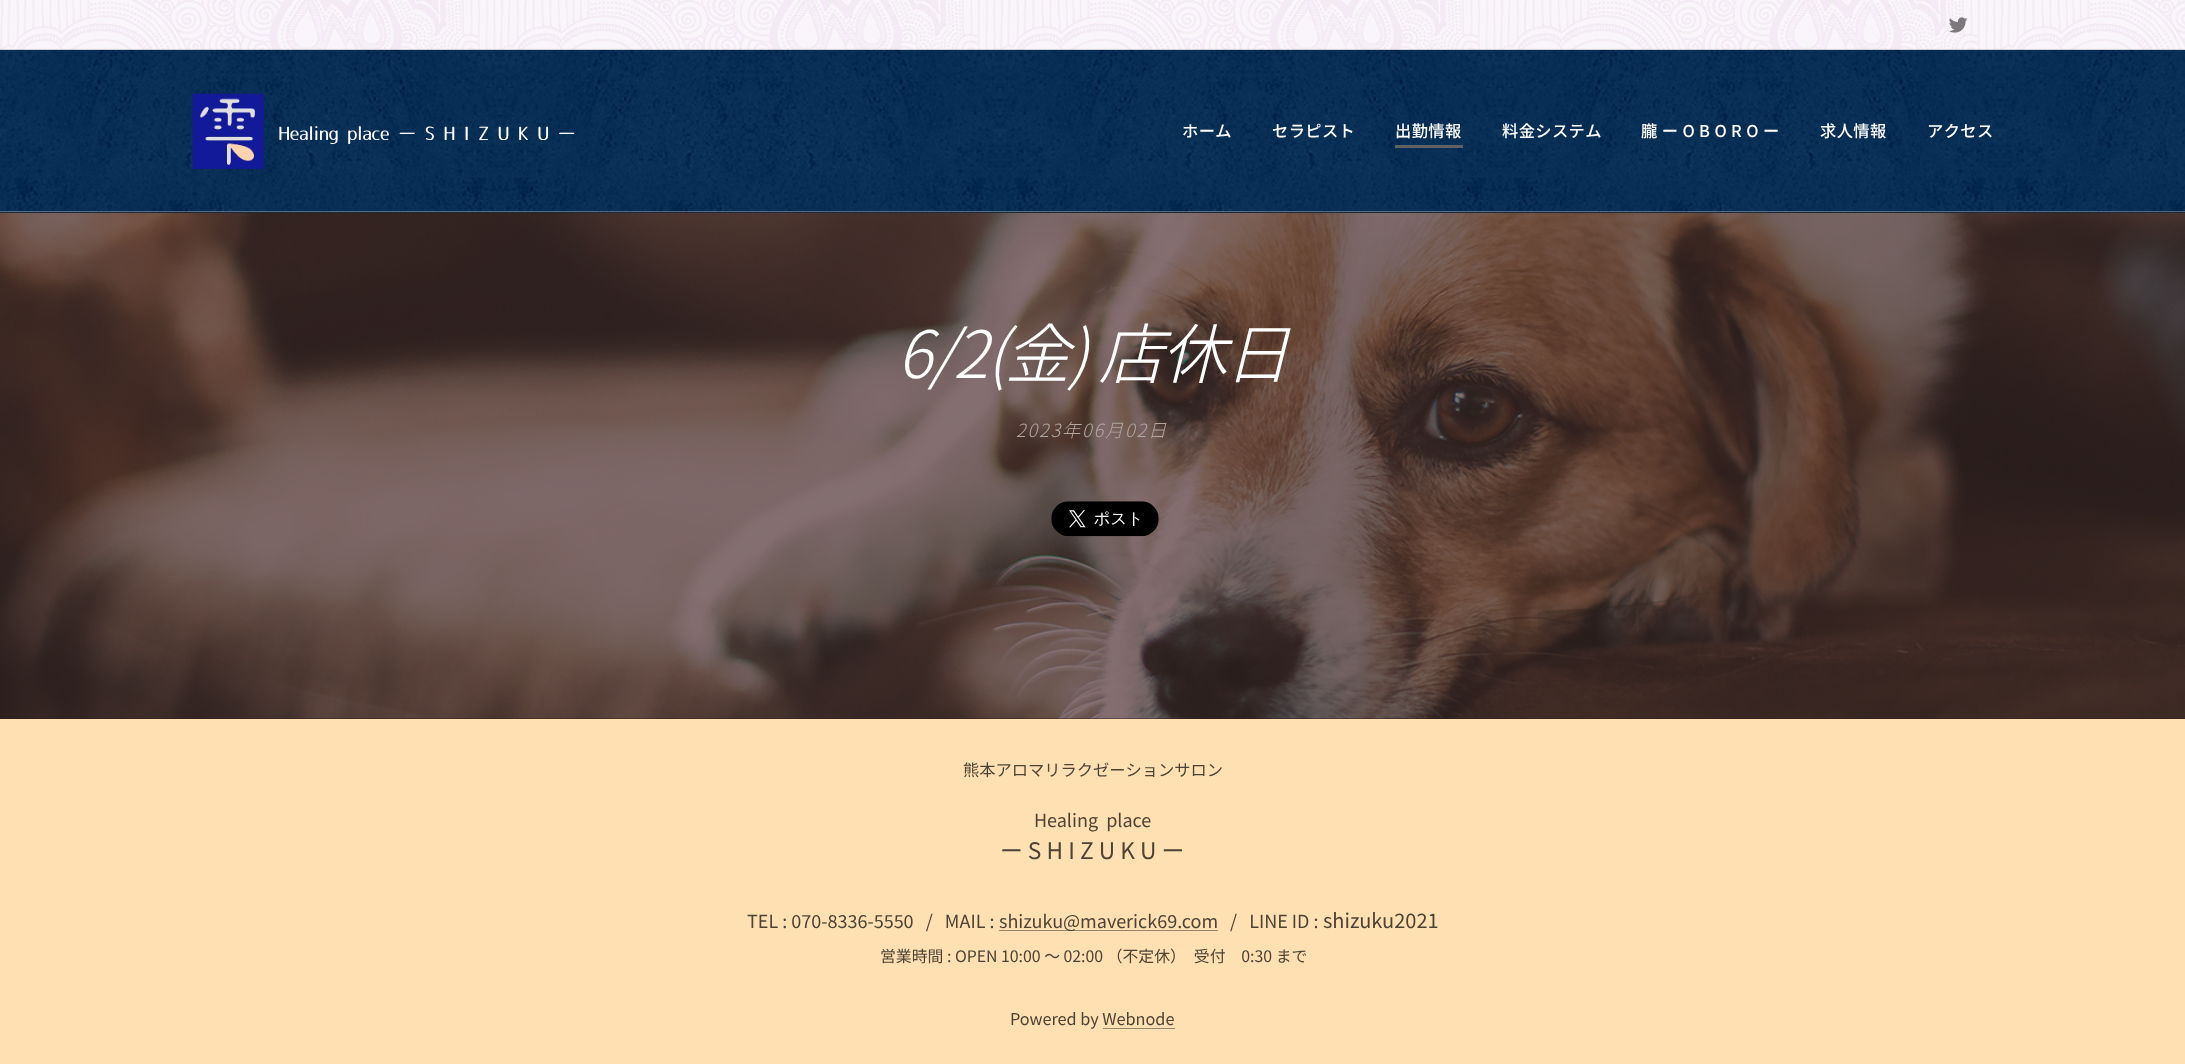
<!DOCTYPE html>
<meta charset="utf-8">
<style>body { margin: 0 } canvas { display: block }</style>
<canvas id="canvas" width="2185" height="1064"></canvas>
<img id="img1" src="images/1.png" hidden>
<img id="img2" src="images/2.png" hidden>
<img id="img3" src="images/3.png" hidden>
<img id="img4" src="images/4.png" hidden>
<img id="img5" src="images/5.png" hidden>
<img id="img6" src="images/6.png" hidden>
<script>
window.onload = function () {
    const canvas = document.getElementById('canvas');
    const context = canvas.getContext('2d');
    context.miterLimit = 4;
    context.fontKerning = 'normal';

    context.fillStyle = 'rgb(255, 224, 178)';
    context.fillRect(0, 0, 2185, 1064);
    context.drawImage(document.getElementById('img1'), 0, 0, 2185, 50);
    context.drawImage(document.getElementById('img2'), 1949, 17, 19, 16);
    context.fillStyle = 'rgba(0, 0, 0, 0.15)';
    context.fillRect(0, 49, 2185, 1);
    context.fillStyle = 'rgb(39, 39, 39)';
    context.fillRect(0, 212, 2185, 1);
    context.drawImage(document.getElementById('img3'), 0, 50, 2185, 163);
    context.drawImage(document.getElementById('img4'), 192, 93, 72, 76);
    context.fillStyle = 'rgb(97, 97, 97)';
    context.fillRect(1395, 145, 68, 3);
    context.fillStyle = 'rgba(255, 255, 255, 0.3)';
    context.fillRect(0, 211, 2185, 1);
    context.fillStyle = 'rgb(49, 32, 32)';
    context.fillRect(0, 718, 2185, 1);
    context.drawImage(document.getElementById('img5'), 0, 213, 2185, 506);
    context.drawImage(document.getElementById('img6'), 1051, 501, 108, 36);
    context.fillStyle = 'rgb(153, 134, 107)';
    context.fillRect(999, 930, 219, 1);
    context.letterSpacing = '-0.4px';
    context.font = '18.4px "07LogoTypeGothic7"';
    context.fillStyle = 'rgb(255, 255, 255)';
    context.fillText('Healing place ー S H I Z U K U ー', 278, 140);
    context.letterSpacing = '0.4px';
    context.font = '500 16.25px Noto Sans JP';
    context.fillText('ホーム', 1182, 137);
    context.fillText('セラピスト', 1272, 137);
    context.fillText('出勤情報', 1395, 137);
    context.fillText('料金システム', 1502, 137);
    context.fillText('朧 ー O B O R O ー', 1641, 137);
    context.fillText('求人情報', 1820, 137);
    context.fillText('アクセス', 1927, 137);
    context.letterSpacing = '-2.25px';
    context.font = 'italic 300 65.25px "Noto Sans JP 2"';
    context.fillText('6/2(金) 店休日', 897, 378);
    context.letterSpacing = '1.75px';
    context.font = 'italic 300 18.25px Noto Sans JP';
    context.fillStyle = 'rgb(177, 166, 162)';
    context.fillText('2023年06月02日', 1016, 437);
    context.letterSpacing = '0px';
    context.font = '16.25px Noto Sans JP';
    context.fillStyle = 'rgb(77, 67, 53)';
    context.fillText('熊本アロマリラクゼーションサロン', 963, 776);
    context.font = '18px Noto Sans JP';
    context.fillText('Healing  place', 1034, 827);
    context.font = '22.75px Noto Sans JP';
    context.fillText('ー S H I Z U K U ー', 1000, 859);
    context.font = '18px Noto Sans JP';
    context.fillText('TEL : 070-8336-5550   /   MAIL :', 747, 928);
    context.fillText('shizuku@maverick69.com', 999, 928);
    context.fillText('/   LINE ID :', 1230, 928);
    context.font = '20px Noto Sans JP';
    context.fillText('shizuku2021', 1323, 928);
    context.font = '15.85px Noto Sans JP';
    context.fillText('営業時間 : OPEN 10:00 ～ 02:00 （不定休）　受付　0:30 まで', 880, 962);
    context.font = '16.25px Noto Sans JP';
    context.fillText('Powered by Webnode', 1010, 1025);
    context.fillStyle = 'rgb(153, 134, 107)';
    context.fillRect(1103, 1028, 72, 1);
};
</script>
